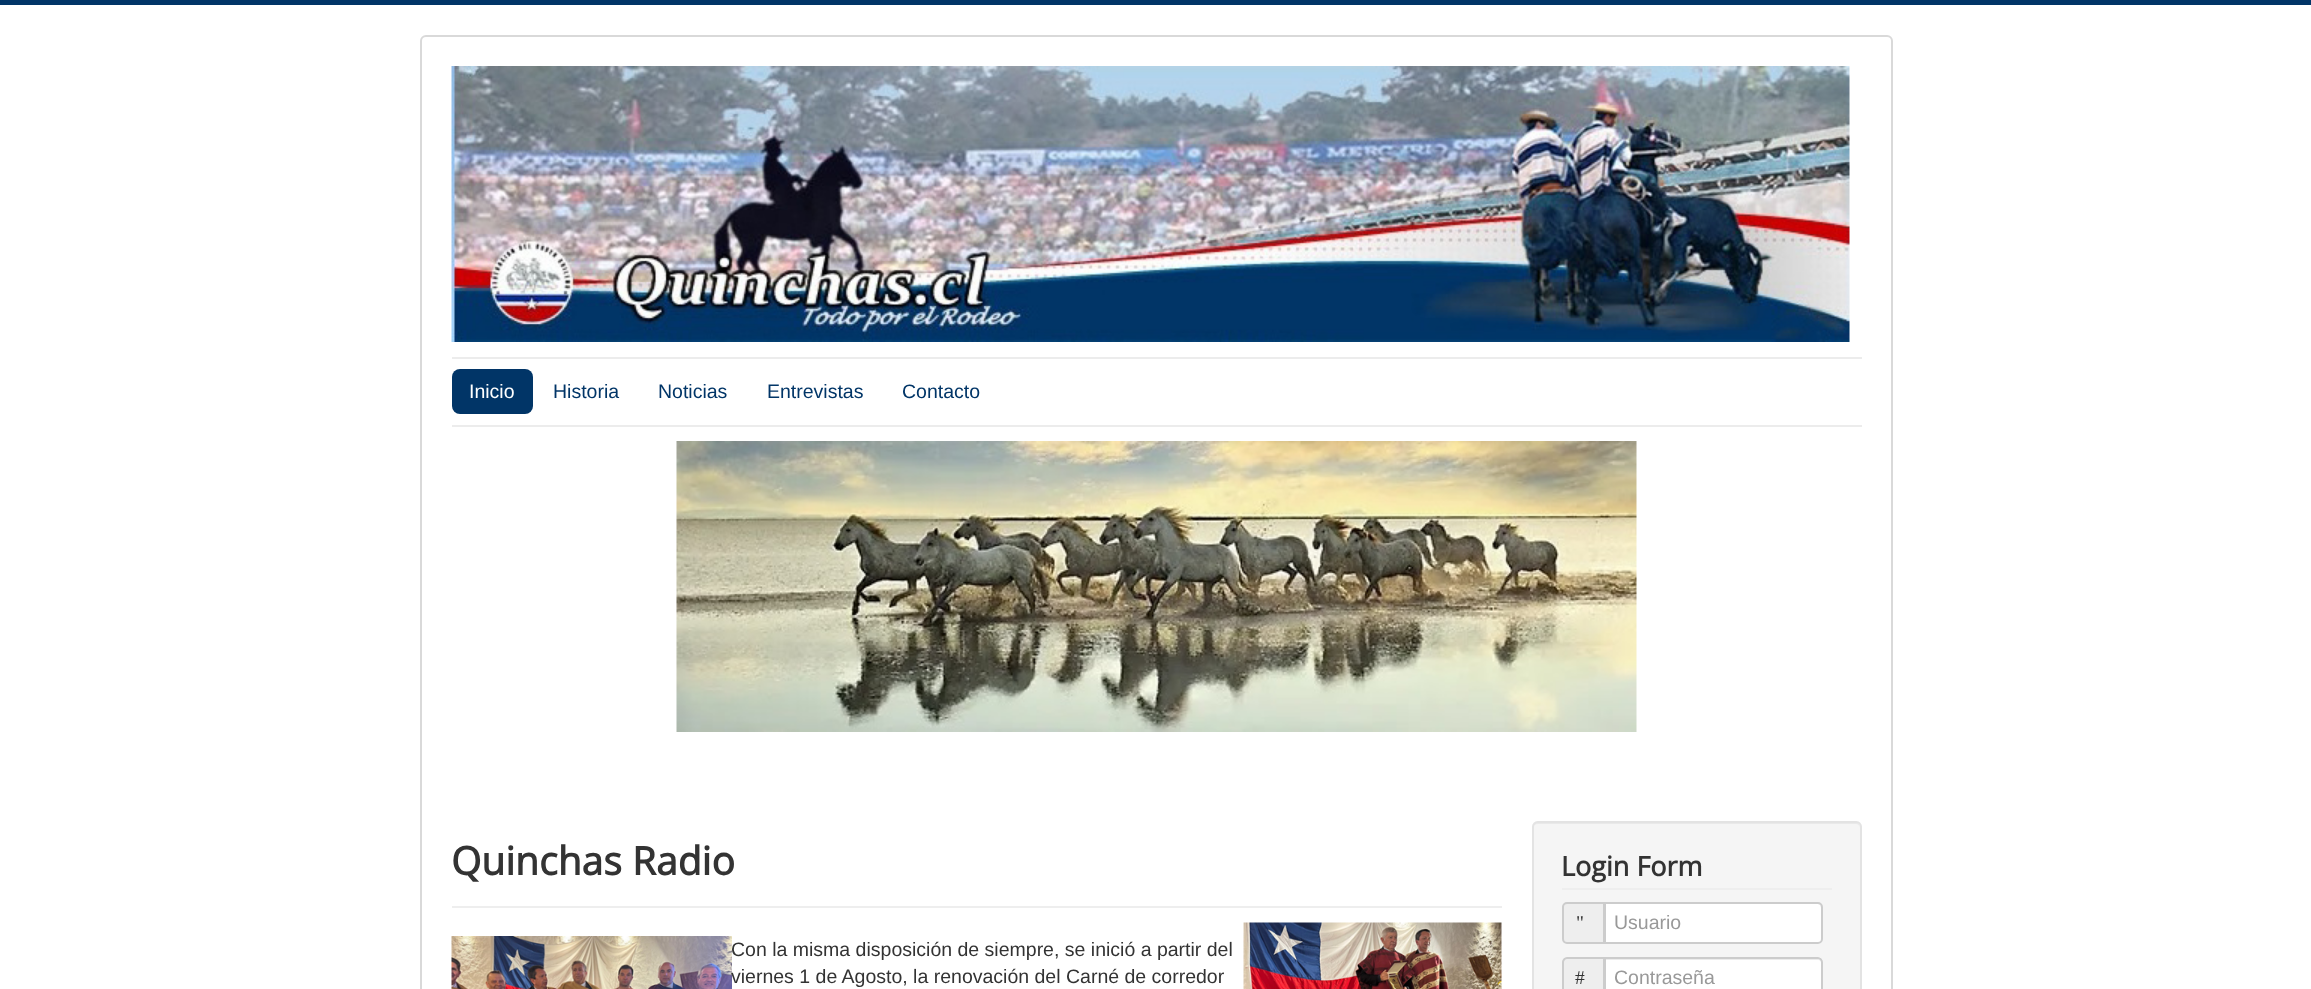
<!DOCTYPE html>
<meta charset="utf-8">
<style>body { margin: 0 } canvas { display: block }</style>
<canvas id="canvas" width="2311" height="989"></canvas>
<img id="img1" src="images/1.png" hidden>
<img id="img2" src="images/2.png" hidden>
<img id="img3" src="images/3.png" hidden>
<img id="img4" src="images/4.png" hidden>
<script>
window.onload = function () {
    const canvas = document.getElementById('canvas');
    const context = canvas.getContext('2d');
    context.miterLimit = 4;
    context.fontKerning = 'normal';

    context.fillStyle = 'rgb(255, 255, 255)';
    context.fillRect(0, 0, 2311, 989);
    context.fillStyle = 'rgb(1, 53, 103)';
    context.fillRect(0, 0, 2311, 5);
    context.beginPath();
    context.roundRect(421, 36, 1471, 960, 5);
    context.strokeStyle = 'rgb(217, 217, 217)';
    context.lineWidth = 2;
    context.stroke();
    context.drawImage(document.getElementById('img1'), 451, 66, 1399, 276);
    context.fillStyle = 'rgb(236, 236, 236)';
    context.fillRect(452, 357, 1410, 2);
    context.fillRect(452, 425, 1410, 2);
    context.fillStyle = 'rgb(1, 53, 103)';
    context.beginPath();
    context.roundRect(452, 369, 81, 45, 8);
    context.fill();
    context.drawImage(document.getElementById('img2'), 676, 441, 961, 291);
    context.fillStyle = 'rgb(238, 238, 238)';
    context.fillRect(452, 906, 1050, 2);
    context.drawImage(document.getElementById('img3'), 451, 936, 281, 53);
    context.drawImage(document.getElementById('img4'), 1243, 922, 259, 67);
    context.fillStyle = 'rgb(245, 245, 245)';
    context.beginPath();
    context.roundRect(1532, 821, 330, 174, 6);
    context.fill();
    context.fillStyle = 'rgb(233, 233, 233)';
    context.beginPath();
    context.moveTo(1538, 824);
    context.lineTo(1856, 824);
    context.bezierCurveTo(1858, 824, 1860, 826, 1860, 828);
    context.bezierCurveTo(1860, 825, 1858, 822, 1855, 822);
    context.lineTo(1538, 822);
    context.bezierCurveTo(1535, 822, 1533, 825, 1533, 828);
    context.bezierCurveTo(1533, 826, 1535, 824, 1538, 824);
    context.closePath();
    context.fill();
    context.beginPath();
    context.roundRect(1533, 822, 328, 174, 5);
    context.strokeStyle = 'rgb(227, 227, 227)';
    context.stroke();
    context.fillStyle = 'rgb(238, 238, 238)';
    context.fillRect(1562, 888, 270, 2);
    context.beginPath();
    context.roundRect(1563, 903, 41, 40, [4, 0, 0, 4]);
    context.fill();
    context.strokeStyle = 'rgb(204, 204, 204)';
    context.stroke();
    context.fillStyle = 'rgb(255, 255, 255)';
    context.beginPath();
    context.roundRect(1604, 902, 219, 42, [0, 5, 5, 0]);
    context.fill();
    context.fillStyle = 'rgb(236, 236, 236)';
    context.beginPath();
    context.moveTo(1605, 904);
    context.lineTo(1818, 904);
    context.lineTo(1820, 905);
    context.lineTo(1821, 908);
    context.bezierCurveTo(1821, 906, 1821, 903, 1818, 903);
    context.lineTo(1605, 903);
    context.closePath();
    context.fill();
    context.beginPath();
    context.roundRect(1605, 903, 217, 40, [0, 4, 4, 0]);
    context.stroke();
    context.fillStyle = 'rgb(238, 238, 238)';
    context.beginPath();
    context.moveTo(1567, 958);
    context.lineTo(1604, 958);
    context.lineTo(1604, 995);
    context.lineTo(1567, 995);
    context.bezierCurveTo(1565, 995, 1563, 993, 1563, 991);
    context.lineTo(1563, 962);
    context.bezierCurveTo(1563, 960, 1565, 958, 1567, 958);
    context.closePath();
    context.fill();
    context.stroke();
    context.fillStyle = 'rgb(255, 255, 255)';
    context.beginPath();
    context.moveTo(1604, 957);
    context.lineTo(1818, 957);
    context.bezierCurveTo(1821, 957, 1823, 959, 1823, 962);
    context.lineTo(1823, 989);
    context.bezierCurveTo(1823, 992, 1821, 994, 1818, 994);
    context.lineTo(1604, 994);
    context.closePath();
    context.fill();
    context.fillStyle = 'rgb(236, 236, 236)';
    context.beginPath();
    context.moveTo(1605, 960);
    context.lineTo(1818, 960);
    context.bezierCurveTo(1820, 960, 1821, 961, 1821, 963);
    context.lineTo(1821, 962);
    context.bezierCurveTo(1821, 960, 1820, 959, 1818, 959);
    context.lineTo(1605, 959);
    context.closePath();
    context.fill();
    context.beginPath();
    context.moveTo(1605, 958);
    context.lineTo(1818, 958);
    context.bezierCurveTo(1820, 958, 1822, 960, 1822, 962);
    context.lineTo(1822, 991);
    context.bezierCurveTo(1822, 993, 1820, 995, 1818, 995);
    context.lineTo(1605, 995);
    context.closePath();
    context.stroke();
    context.font = '19.5px Liberation Sans';
    context.fillStyle = 'rgb(255, 255, 255)';
    context.fillText('Inicio', 469, 398);
    context.fillStyle = 'rgb(1, 53, 103)';
    context.fillText('Historia', 553, 398);
    context.fillText('Noticias', 658, 398);
    context.fillText('Entrevistas', 767, 398);
    context.fillText('Contacto', 902, 398);
    context.font = 'bold 39px Open Sans';
    context.fillStyle = 'rgb(51, 51, 51)';
    context.fillText('Quinchas Radio', 451, 875);
    context.font = '19.5px Liberation Sans';
    context.fillText('Con la misma disposición de siempre, se inició a partir del', 731, 956);
    context.fillText('viernes 1 de Agosto, la renovación del Carné de corredor', 731, 983);
    context.font = 'bold 27px Open Sans';
    context.fillText('Login Form', 1561, 876);
    context.font = '19.5px Liberation Serif';
    context.fillText('"', 1576, 929);
    context.font = '19.5px Liberation Sans';
    context.fillStyle = 'rgb(153, 153, 153)';
    context.fillText('Usuario', 1614, 929);
    context.font = '19.5px Liberation Serif';
    context.fillStyle = 'rgb(51, 51, 51)';
    context.fillText('#', 1575, 984);
    context.font = '19.5px Liberation Sans';
    context.fillStyle = 'rgb(153, 153, 153)';
    context.fillText('Contraseña', 1614, 984);
};
</script>
